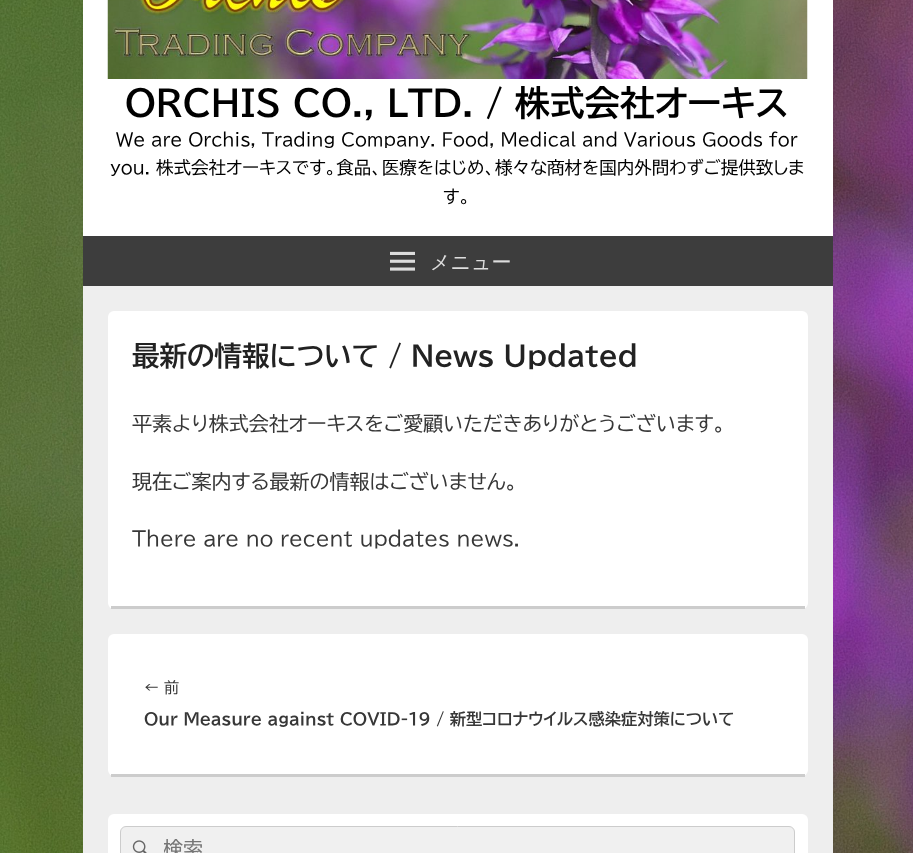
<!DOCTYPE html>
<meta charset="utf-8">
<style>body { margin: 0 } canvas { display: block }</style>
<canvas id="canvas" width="913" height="853"></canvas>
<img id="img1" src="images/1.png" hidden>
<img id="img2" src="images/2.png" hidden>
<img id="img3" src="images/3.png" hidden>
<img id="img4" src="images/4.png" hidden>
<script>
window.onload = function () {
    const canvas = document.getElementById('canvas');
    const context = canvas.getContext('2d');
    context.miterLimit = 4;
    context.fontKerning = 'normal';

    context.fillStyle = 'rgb(255, 255, 255)';
    context.fillRect(0, 0, 913, 853);
    context.drawImage(document.getElementById('img1'), 0, 0, 913, 853);
    context.fillStyle = 'rgb(238, 238, 238)';
    context.fillRect(83, 286, 750, 567);
    context.fillStyle = 'rgb(255, 255, 255)';
    context.fillRect(83, 0, 750, 236);
    context.drawImage(document.getElementById('img2'), 107, 0, 701, 79);
    context.fillStyle = 'rgb(61, 61, 61)';
    context.fillRect(83, 236, 750, 50);
    context.drawImage(document.getElementById('img3'), 390, 251, 25, 20);
    context.fillStyle = 'rgb(255, 255, 255)';
    context.beginPath();
    context.roundRect(108, 311, 700, 298, 6);
    context.fill();
    context.fillStyle = 'rgb(204, 204, 204)';
    context.fillRect(111, 606, 694, 3);
    context.fillStyle = 'rgb(255, 255, 255)';
    context.beginPath();
    context.roundRect(108, 634, 700, 142, 6);
    context.fill();
    context.fillStyle = 'rgb(204, 204, 204)';
    context.fillRect(111, 774, 694, 3);
    context.fillStyle = 'rgb(255, 255, 255)';
    context.beginPath();
    context.roundRect(108, 814, 700, 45, 6);
    context.fill();
    context.fillStyle = 'rgb(240, 240, 240)';
    context.beginPath();
    context.roundRect(120.5, 826.5, 674, 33, 5.5);
    context.fill();
    context.strokeStyle = 'rgb(204, 204, 204)';
    context.stroke();
    context.drawImage(document.getElementById('img4'), 132, 840, 15, 13);
    context.font = 'bold 35px BIZ UDPGothic';
    context.fillStyle = 'rgb(0, 0, 0)';
    context.fillText('ORCHIS CO., LTD. / 株式会社オーキス', 125, 116);
    context.font = '17.5px BIZ UDPGothic';
    context.fillText('We are Orchis, Trading Company. Food, Medical and Various Goods for', 116, 146);
    context.fillText('you. 株式会社オーキスです。食品、医療をはじめ、様々な商材を国内外問わずご提供致しま', 110, 174);
    context.fillText('す。', 443, 203);
    context.font = '500 20px WenQuanYi Zen Hei';
    context.fillStyle = 'rgb(221, 221, 221)';
    context.fillText('メニュー', 430, 269);
    context.font = 'bold 27.5px BIZ UDPGothic';
    context.fillStyle = 'rgb(34, 34, 34)';
    context.fillText('最新の情報について / News Updated', 132, 366);
    context.font = '20px BIZ UDPGothic';
    context.fillStyle = 'rgb(55, 55, 55)';
    context.fillText('平素より株式会社オーキスをご愛顧いただきありがとうございます。', 132, 431);
    context.fillText('現在ご案内する最新の情報はございません。', 132, 489);
    context.fillText('There are no recent updates news.', 132, 546);
    context.font = '15px BIZ UDPGothic';
    context.fillText('← 前', 144, 693);
    context.font = 'bold 16.25px BIZ UDPGothic';
    context.fillText('Our Measure against COVID-19 / 新型コロナウイルス感染症対策について', 144, 725);
    context.save();
    context.beginPath();
    context.rect(164, 838, 599, 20);
    context.clip();
    context.font = '20px BIZ UDPGothic';
    context.fillStyle = 'rgb(117, 117, 117)';
    context.fillText('検索', 163, 856);
    context.restore();
};
</script>
